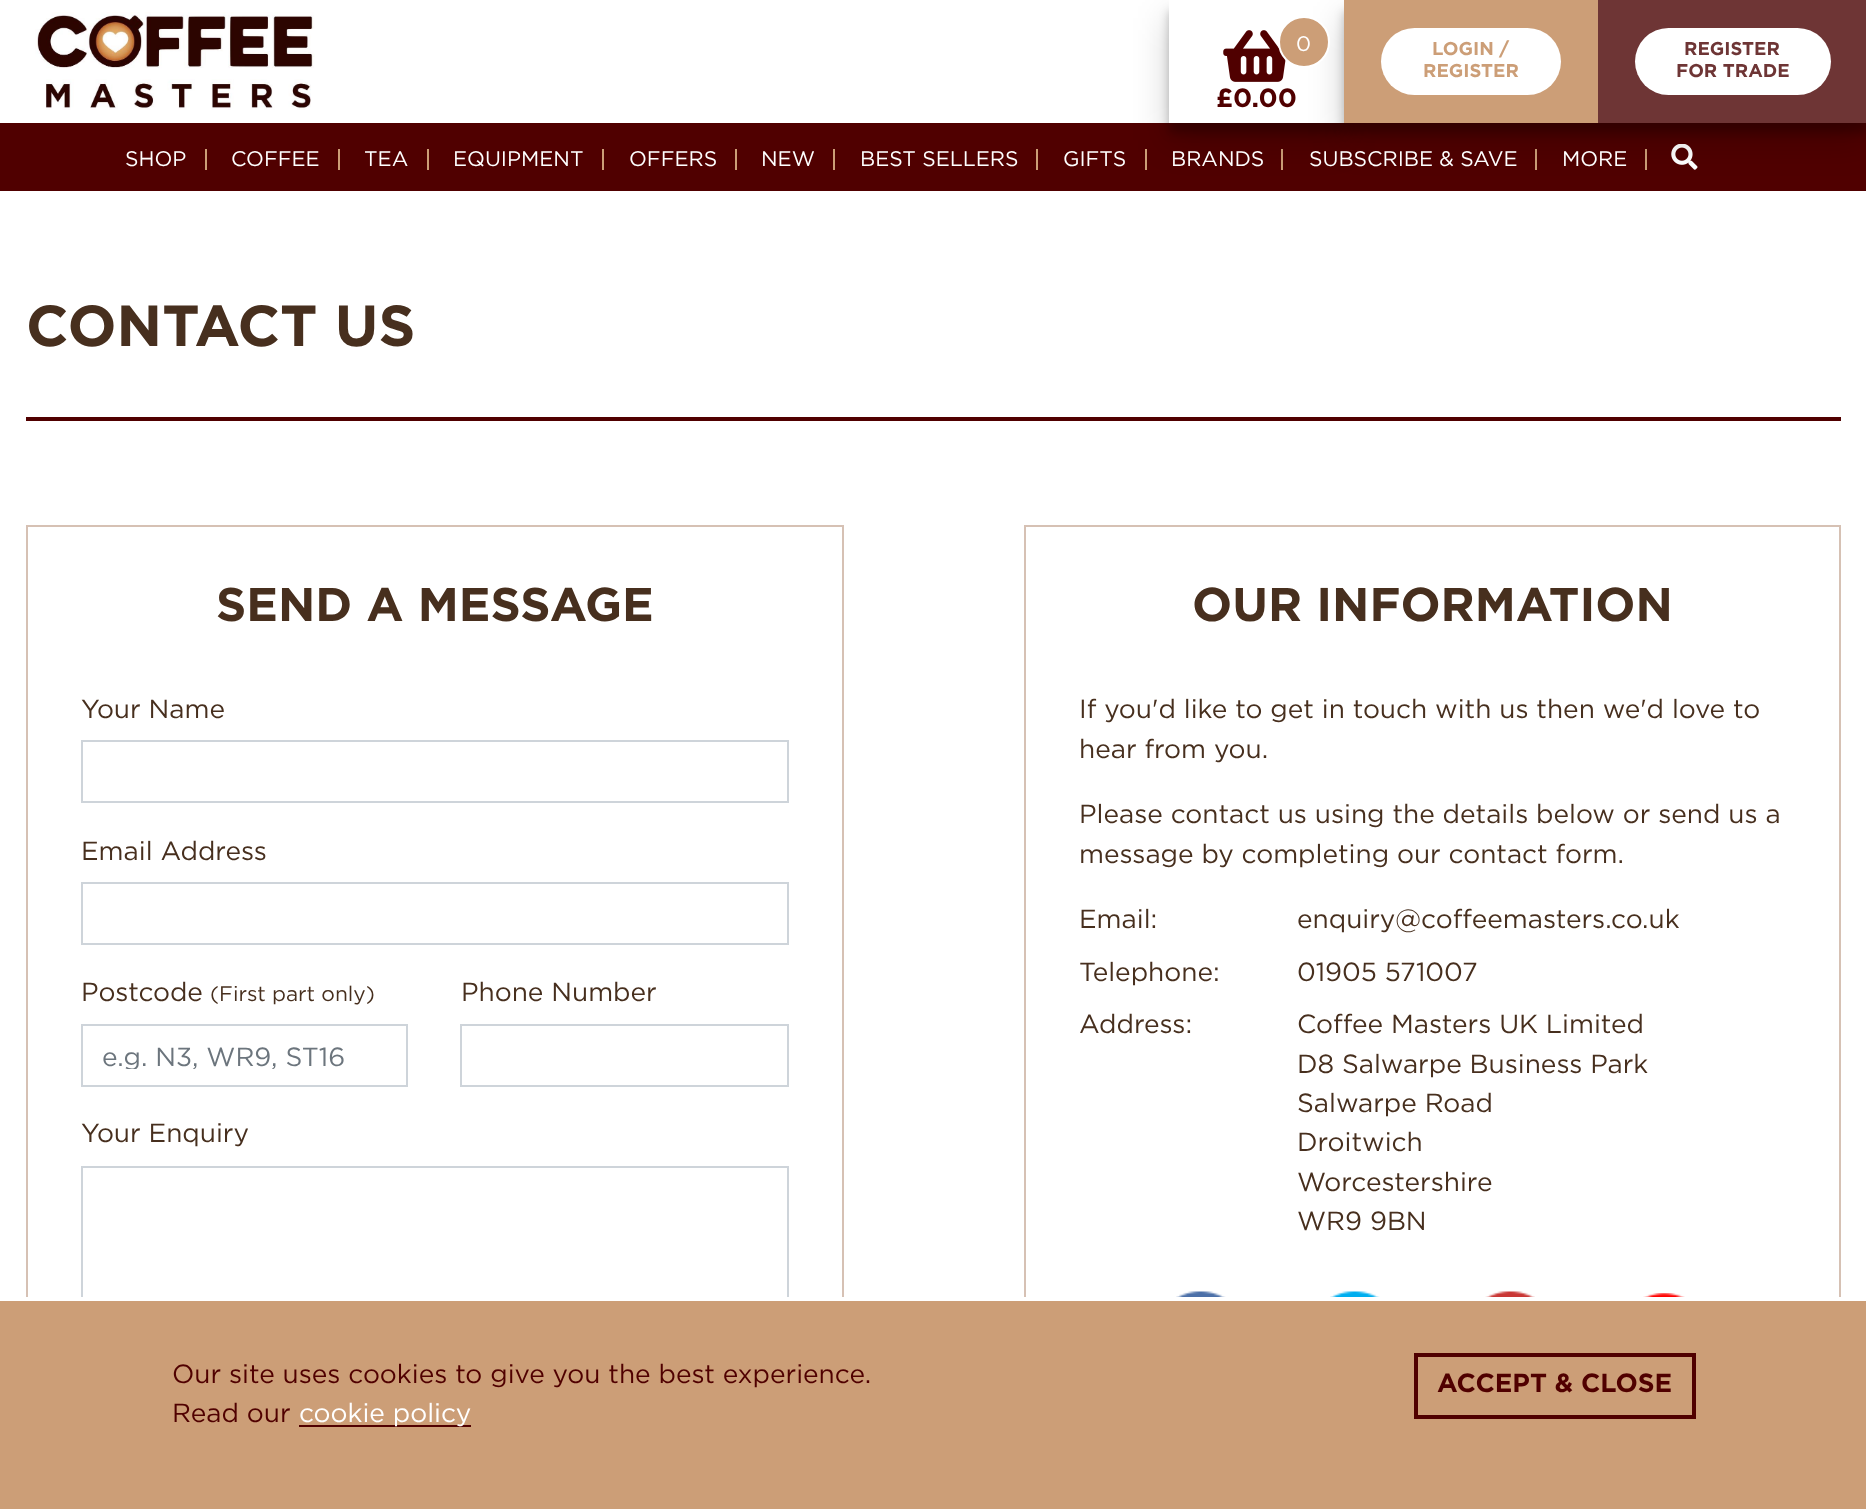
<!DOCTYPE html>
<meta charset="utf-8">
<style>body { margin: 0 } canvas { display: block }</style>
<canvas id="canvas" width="1866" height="1509"></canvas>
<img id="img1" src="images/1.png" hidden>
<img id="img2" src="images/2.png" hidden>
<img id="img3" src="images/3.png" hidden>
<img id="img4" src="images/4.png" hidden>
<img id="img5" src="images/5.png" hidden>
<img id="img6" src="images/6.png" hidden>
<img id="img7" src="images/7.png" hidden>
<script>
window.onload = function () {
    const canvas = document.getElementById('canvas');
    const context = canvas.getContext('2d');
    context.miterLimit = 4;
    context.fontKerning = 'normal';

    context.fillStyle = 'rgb(255, 255, 255)';
    context.fillRect(0, 0, 1866, 1509);
    context.drawImage(document.getElementById('img1'), 35, 12, 280, 98);
    context.fillStyle = 'rgb(80, 0, 0)';
    context.fillRect(0, 123, 1866, 68);
    context.fillStyle = 'rgba(0, 0, 0, 0.23)';
    context.filter = 'blur(5px)';
    context.beginPath();
    context.rect(1169, 11, 175, 122);
    context.fill();
    context.filter = 'none';
    context.fillStyle = 'rgb(204, 158, 119)';
    context.fillRect(1145, 149, 2, 21);
    context.fillRect(1281, 149, 2, 21);
    context.fillStyle = 'rgba(0, 0, 0, 0.19)';
    context.filter = 'blur(17.5px)';
    context.beginPath();
    context.rect(1169, 18, 175, 122);
    context.fill();
    context.filter = 'none';
    context.fillStyle = 'rgb(255, 255, 255)';
    context.fillRect(1169, 0, 175, 123);
    context.drawImage(document.getElementById('img2'), 1223, 30, 63, 52);
    context.drawImage(document.getElementById('img3'), 1671, 144, 27, 26);
    context.fillStyle = 'rgba(0, 0, 0, 0.23)';
    context.filter = 'blur(5px)';
    context.beginPath();
    context.rect(1344, 11, 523, 122);
    context.fill();
    context.filter = 'none';
    context.fillStyle = 'rgb(204, 158, 119)';
    context.fillRect(1535, 149, 2, 21);
    context.fillRect(1645, 149, 2, 21);
    context.fillStyle = 'rgba(0, 0, 0, 0.19)';
    context.filter = 'blur(17.5px)';
    context.beginPath();
    context.rect(1344, 18, 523, 122);
    context.fill();
    context.filter = 'none';
    context.fillStyle = 'rgb(204, 158, 119)';
    context.beginPath();
    context.arc(1304, 42, 25, 0, 2 * Math.PI);
    context.fill();
    context.strokeStyle = 'rgb(255, 255, 255)';
    context.lineWidth = 2;
    context.stroke();
    context.fillRect(1344, 0, 254, 123);
    context.fillStyle = 'rgb(255, 255, 255)';
    context.beginPath();
    context.roundRect(1381, 28, 180, 67, 33.5);
    context.fill();
    context.fillStyle = 'rgb(110, 53, 53)';
    context.fillRect(1598, 0, 268, 123);
    context.fillStyle = 'rgb(255, 255, 255)';
    context.beginPath();
    context.roundRect(1635, 28, 196, 67, 33.5);
    context.fill();
    context.fillStyle = 'rgb(204, 158, 119)';
    context.fillRect(205, 149, 2, 21);
    context.fillRect(338, 149, 2, 21);
    context.fillRect(427, 149, 2, 21);
    context.fillRect(602, 149, 2, 21);
    context.fillRect(735, 149, 2, 21);
    context.fillRect(833, 149, 2, 21);
    context.fillRect(1036, 149, 2, 21);
    context.fillStyle = 'rgb(80, 0, 0)';
    context.fillRect(26, 417, 1815, 4);
    context.strokeStyle = 'rgb(214, 193, 180)';
    context.strokeRect(27, 526, 816, 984);
    context.strokeStyle = 'rgb(206, 212, 218)';
    context.strokeRect(82, 741, 706, 61);
    context.strokeRect(82, 883, 706, 61);
    context.strokeRect(82, 1025, 325, 61);
    context.strokeRect(461, 1025, 327, 61);
    context.strokeRect(82, 1167, 706, 295);
    context.strokeStyle = 'rgb(214, 193, 180)';
    context.strokeRect(1025, 526, 815, 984);
    context.drawImage(document.getElementById('img4'), 1176, 1291, 50, 6);
    context.drawImage(document.getElementById('img5'), 1330, 1291, 50, 6);
    context.drawImage(document.getElementById('img6'), 1485, 1291, 50, 6);
    context.drawImage(document.getElementById('img7'), 1643, 1293, 42, 4);
    context.fillStyle = 'rgb(204, 158, 119)';
    context.fillRect(0, 1301, 1866, 208);
    context.fillStyle = 'rgb(255, 255, 255)';
    context.fillRect(26, 1297, 1815, 4);
    context.fillStyle = 'rgb(80, 0, 0)';
    context.fillRect(299, 1425, 172, 2);
    context.strokeStyle = 'rgb(80, 0, 0)';
    context.lineWidth = 4;
    context.strokeRect(1416, 1355, 278, 62);
    context.font = '21px Gotham';
    context.fillStyle = 'rgb(255, 255, 255)';
    context.fillText('0', 1296, 51);
    context.font = 'bold 26.25px Gotham';
    context.fillStyle = 'rgb(80, 0, 0)';
    context.fillText('£0.00', 1216, 107);
    context.font = 'bold 18.5px Gotham';
    context.fillStyle = 'rgb(204, 158, 119)';
    context.fillText('LOGIN /', 1432, 55);
    context.fillText('REGISTER', 1423, 77);
    context.fillStyle = 'rgb(110, 53, 53)';
    context.fillText('REGISTER', 1684, 55);
    context.fillText('FOR TRADE', 1676, 77);
    context.font = '21px Gotham';
    context.fillStyle = 'rgb(255, 255, 255)';
    context.fillText('SHOP', 125, 166);
    context.fillText('COFFEE', 231, 166);
    context.fillText('TEA', 364, 166);
    context.fillText('EQUIPMENT', 453, 166);
    context.fillText('OFFERS', 629, 166);
    context.fillText('NEW', 761, 166);
    context.fillText('BEST SELLERS', 860, 166);
    context.fillText('GIFTS', 1063, 166);
    context.fillText('BRANDS', 1171, 166);
    context.fillText('SUBSCRIBE & SAVE', 1309, 166);
    context.fillText('MORE', 1562, 166);
    context.font = 'bold 57.75px Gotham';
    context.fillStyle = 'rgb(71, 47, 30)';
    context.fillText('CONTACT US', 26, 346);
    context.font = 'bold 47.25px Gotham';
    context.fillText('SEND A MESSAGE', 216, 621);
    context.font = '26.25px Gotham';
    context.fillText('Your Name', 81, 718);
    context.fillText('Email Address', 81, 860);
    context.fillText('Postcode', 81, 1001);
    context.font = '21px Gotham';
    context.fillText('(First part only)', 210, 1001);
    context.save();
    context.beginPath();
    context.rect(102, 1041, 285, 28);
    context.clip();
    context.font = '26.25px Gotham';
    context.fillStyle = 'rgb(108, 117, 125)';
    context.fillText('e.g. N3, WR9, ST16', 102, 1066);
    context.restore();
    context.font = '26.25px Gotham';
    context.fillText('Phone Number', 461, 1001);
    context.fillText('Your Enquiry', 81, 1142);
    context.font = 'bold 47.25px Gotham';
    context.fillText('OUR INFORMATION', 1192, 621);
    context.font = '26.25px Gotham';
    context.fillText('If you\'d like to get in touch with us then we\'d love to', 1079, 718);
    context.fillText('hear from you.', 1079, 758);
    context.fillText('Please contact us using the details below or send us a', 1079, 823);
    context.fillText('message by completing our contact form.', 1079, 863);
    context.fillText('Email:', 1079, 928);
    context.fillText('enquiry@coffeemasters.co.uk', 1297, 928);
    context.fillText('Telephone:', 1079, 981);
    context.fillText('01905 571007', 1297, 981);
    context.fillText('Address:', 1079, 1033);
    context.fillText('Coffee Masters UK Limited', 1297, 1033);
    context.fillText('D8 Salwarpe Business Park', 1297, 1073);
    context.fillText('Salwarpe Road', 1297, 1112);
    context.fillText('Droitwich', 1297, 1151);
    context.fillText('Worcestershire', 1297, 1191);
    context.fillText('WR9 9BN', 1297, 1230);
    context.fillStyle = 'rgb(80, 0, 0)';
    context.fillText('Our site uses cookies to give you the best experience.', 172, 1383);
    context.fillText('Read our', 172, 1422);
    context.fillStyle = 'rgb(255, 255, 255)';
    context.fillText('cookie policy', 299, 1422);
    context.font = 'bold 26.25px Gotham';
    context.fillStyle = 'rgb(80, 0, 0)';
    context.fillText('ACCEPT & CLOSE', 1437, 1392);
};
</script>
